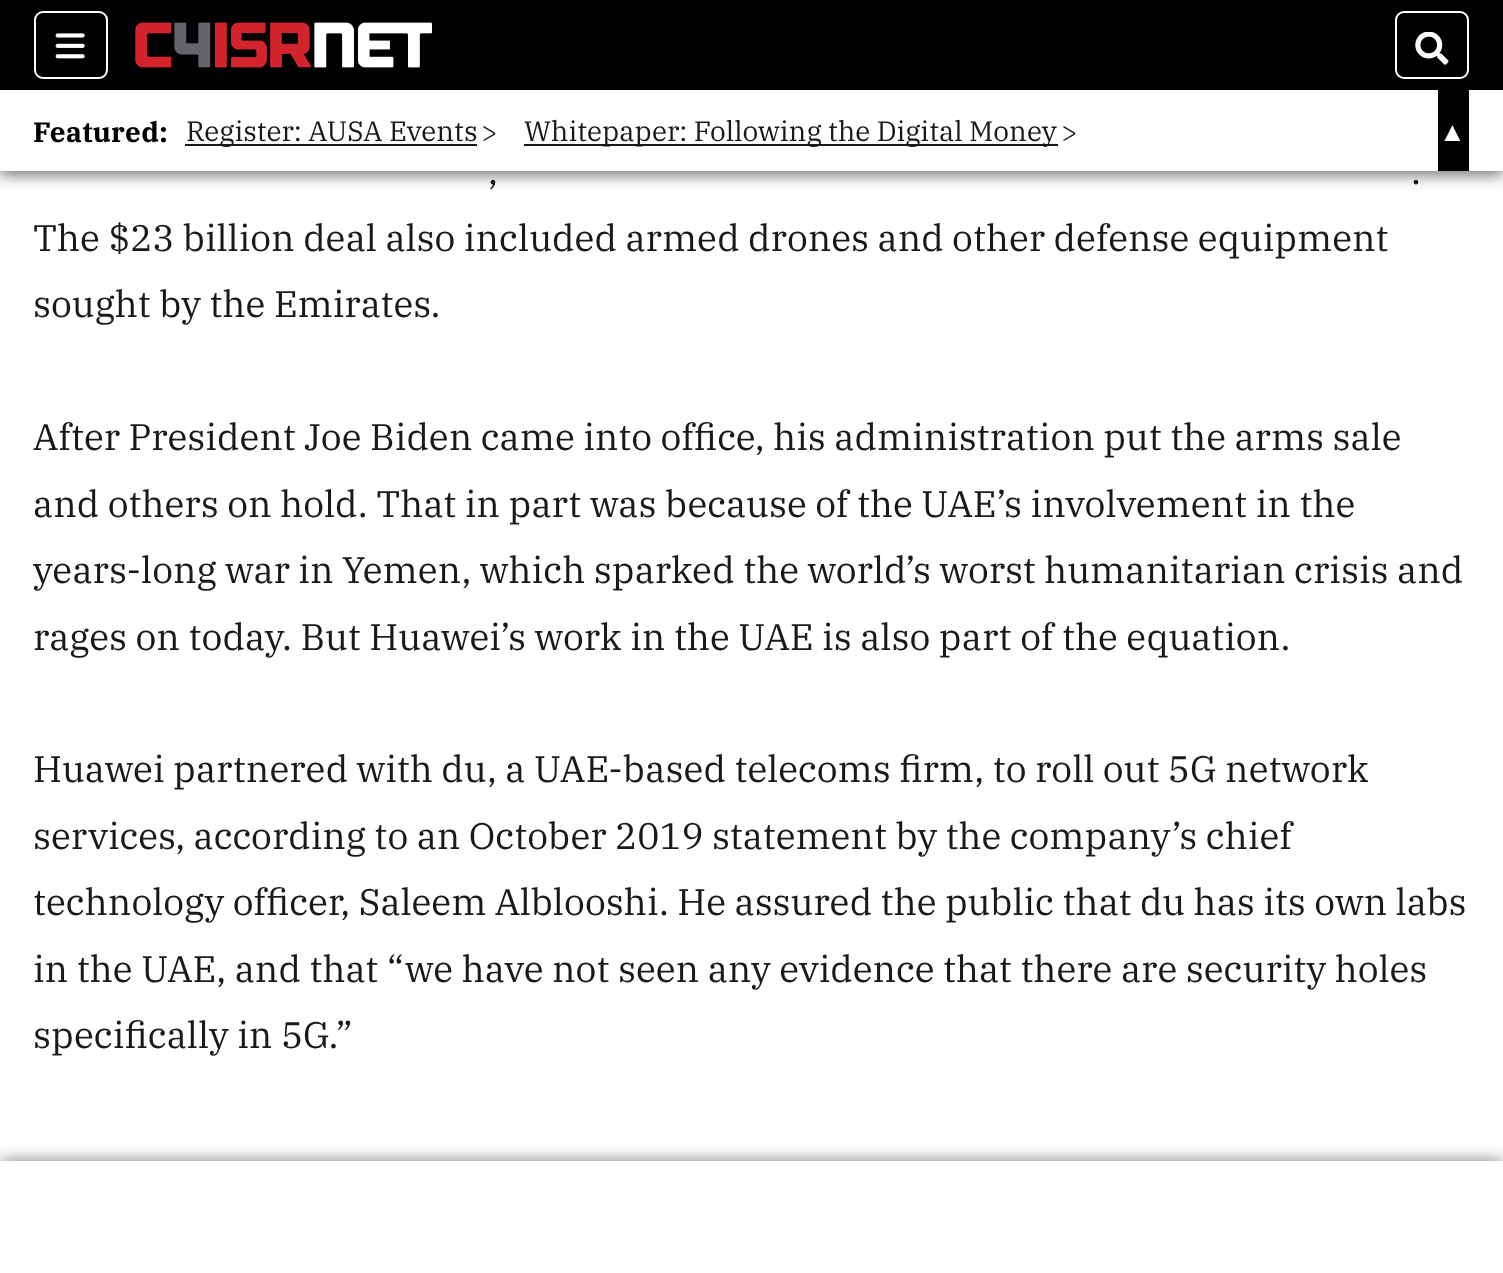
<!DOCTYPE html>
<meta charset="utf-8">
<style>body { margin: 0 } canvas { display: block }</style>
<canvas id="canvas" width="1503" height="1273"></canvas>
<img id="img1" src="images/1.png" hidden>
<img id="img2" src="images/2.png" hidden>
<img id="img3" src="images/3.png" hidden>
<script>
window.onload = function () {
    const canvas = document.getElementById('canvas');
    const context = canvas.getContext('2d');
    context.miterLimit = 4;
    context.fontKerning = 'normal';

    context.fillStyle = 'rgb(255, 255, 255)';
    context.fillRect(0, 0, 1503, 1273);
    context.fillStyle = 'rgba(0, 0, 0, 0.5)';
    context.filter = 'blur(7px)';
    context.beginPath();
    context.rect(0, 5, 1503, 171);
    context.fill();
    context.filter = 'none';
    context.fillStyle = 'rgb(0, 0, 0)';
    context.fillRect(0, 0, 1503, 90);
    context.beginPath();
    context.roundRect(35, 12, 72, 66, 8);
    context.strokeStyle = 'rgb(255, 255, 255)';
    context.lineWidth = 2;
    context.stroke();
    context.drawImage(document.getElementById('img1'), 55, 33, 30, 26);
    context.drawImage(document.getElementById('img2'), 135, 22, 297, 46);
    context.beginPath();
    context.roundRect(1396, 12, 72, 66, 8);
    context.stroke();
    context.drawImage(document.getElementById('img3'), 1415, 32, 34, 33);
    context.fillStyle = 'rgb(255, 255, 255)';
    context.fillRect(0, 90, 1503, 81);
    context.fillStyle = 'rgb(25, 25, 25)';
    context.fillRect(185, 144, 292, 2);
    context.fillRect(524, 144, 534, 2);
    context.fillStyle = 'rgb(0, 0, 0)';
    context.fillRect(1438, 90, 31, 81);
    context.fillStyle = 'rgba(0, 0, 0, 0.5)';
    context.filter = 'blur(8.5px)';
    context.beginPath();
    context.rect(0, 1161, 1503, 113);
    context.fill();
    context.filter = 'none';
    context.fillStyle = 'rgb(255, 255, 255)';
    context.fillRect(0, 1161, 1503, 112);
    context.letterSpacing = '0.25px';
    context.font = 'bold 27.9px IBM Plex Serif';
    context.fillStyle = 'rgb(0, 0, 0)';
    context.fillText('Featured:', 33, 142);
    context.letterSpacing = '0px';
    context.font = '27.9px IBM Plex Serif';
    context.fillStyle = 'rgb(25, 25, 25)';
    context.fillText('Register: AUSA Events', 186, 141);
    context.letterSpacing = '-7px';
    context.fillText('>', 481, 141);
    context.letterSpacing = '0px';
    context.fillText('Whitepaper: Following the Digital Money', 524, 141);
    context.letterSpacing = '-7px';
    context.fillText('>', 1061, 141);
    context.letterSpacing = '0px';
    context.font = '27px Liberation Serif';
    context.fillStyle = 'rgb(255, 255, 255)';
    context.fillText('▲', 1439, 141);
    context.wordSpacing = '-0.1px';
    context.font = '36.9px IBM Plex Serif';
    context.fillStyle = 'rgb(25, 25, 25)';
    context.fillText(',', 488, 184);
    context.fillText('.', 1411, 184);
    context.fillText('The $23 billion deal also included armed drones and other defense equipment', 33, 251);
    context.wordSpacing = '0px';
    context.fillText('sought by the Emirates.', 33, 317);
    context.wordSpacing = '-0.1px';
    context.fillText('After President Joe Biden came into office, his administration put the arms sale', 33, 450);
    context.wordSpacing = '0px';
    context.fillText('and others on hold. That in part was because of the UAE’s involvement in the', 33, 517);
    context.wordSpacing = '-0.1px';
    context.fillText('years-long war in Yemen, which sparked the world’s worst humanitarian crisis and', 33, 583);
    context.wordSpacing = '0px';
    context.fillText('rages on today. But Huawei’s work in the UAE is also part of the equation.', 33, 650);
    context.wordSpacing = '-0.1px';
    context.fillText('Huawei partnered with du, a UAE-based telecoms firm, to roll out 5G network', 33, 782);
    context.fillText('services, according to an October 2019 statement by the company’s chief', 33, 849);
    context.fillText('technology officer, Saleem Alblooshi. He assured the public that du has its own labs', 33, 915);
    context.wordSpacing = '0px';
    context.fillText('in the UAE, and that “we have not seen any evidence that there are security holes', 33, 982);
    context.fillText('specifically in 5G.”', 33, 1048);
};
</script>
